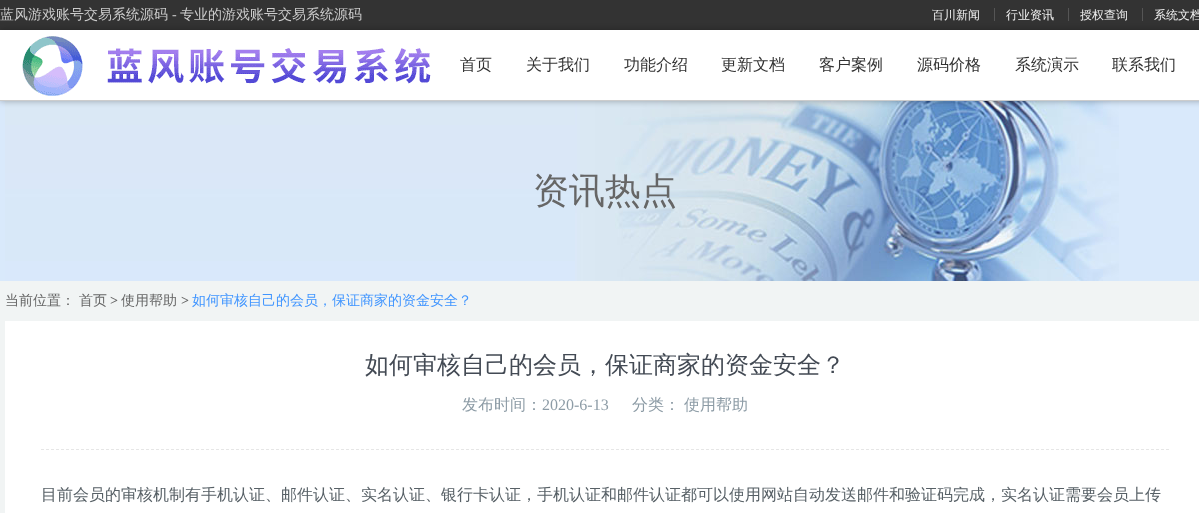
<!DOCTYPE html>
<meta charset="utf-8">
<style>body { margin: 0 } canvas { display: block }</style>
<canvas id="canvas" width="1199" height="513"></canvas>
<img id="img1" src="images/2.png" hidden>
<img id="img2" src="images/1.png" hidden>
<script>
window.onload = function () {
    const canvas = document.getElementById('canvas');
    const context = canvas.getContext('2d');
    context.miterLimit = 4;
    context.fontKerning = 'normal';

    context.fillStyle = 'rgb(255, 255, 255)';
    context.fillRect(0, 0, 1199, 513);
    context.fillStyle = 'rgb(51, 51, 51)';
    context.fillRect(0, 0, 1199, 30);
    context.fillStyle = 'rgb(85, 85, 85)';
    context.fillRect(994, 8, 1, 13);
    context.fillRect(1068, 8, 1, 13);
    context.fillRect(1142, 8, 1, 13);
    context.fillStyle = 'rgb(217, 233, 251)';
    context.fillRect(0, 101, 1199, 180);
    context.drawImage(document.getElementById('img1'), 5, 101, 1114, 180);
    context.save();
    context.beginPath();
    context.moveTo(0, 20);
    context.lineTo(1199, 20);
    context.lineTo(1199, 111);
    context.lineTo(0, 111);
    context.closePath();
    context.moveTo(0, 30);
    context.lineTo(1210, 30);
    context.lineTo(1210, 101);
    context.lineTo(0, 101);
    context.closePath();
    context.clip('evenodd');
    context.fillStyle = 'rgba(0, 0, 0, 0.3)';
    context.filter = 'blur(3px)';
    context.beginPath();
    context.rect(0, 30, 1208, 71);
    context.fill();
    context.filter = 'none';
    context.restore();
    context.fillStyle = 'rgb(204, 204, 204)';
    context.fillRect(0, 100, 1199, 1);
    context.drawImage(document.getElementById('img2'), 22, 36, 409, 60);
    context.fillStyle = 'rgb(241, 244, 244)';
    context.fillRect(0, 281, 1199, 232);
    context.fillStyle = 'rgb(255, 255, 255)';
    context.fillRect(5, 321, 1194, 192);
    context.beginPath();
    context.moveTo(41, 449.5);
    context.lineTo(1169, 449.5);
    context.strokeStyle = 'rgb(230, 230, 230)';
    context.setLineDash([3, 2]);
    context.stroke();
    context.font = '500 14px WenQuanYi Zen Hei';
    context.fillStyle = 'rgb(204, 204, 204)';
    context.fillText('蓝风游戏账号交易系统源码', 0, 19);
    context.font = '14px Liberation Serif';
    context.fillText('-', 172, 19);
    context.font = '500 14px WenQuanYi Zen Hei';
    context.fillText('专业的游戏账号交易系统源码', 180, 19);
    context.font = '500 12px WenQuanYi Zen Hei';
    context.fillStyle = 'rgb(242, 242, 242)';
    context.fillText('百川新闻', 932, 19);
    context.fillText('行业资讯', 1006, 19);
    context.fillText('授权查询', 1080, 19);
    context.fillText('系统文档', 1154, 19);
    context.font = '500 16px WenQuanYi Zen Hei';
    context.fillStyle = 'rgb(51, 51, 51)';
    context.fillText('首页', 460, 70);
    context.fillText('关于我们', 526, 70);
    context.fillText('功能介绍', 624, 70);
    context.fillText('更新文档', 721, 70);
    context.fillText('客户案例', 819, 70);
    context.fillText('源码价格', 917, 70);
    context.fillText('系统演示', 1015, 70);
    context.fillText('联系我们', 1112, 70);
    context.font = '500 36px WenQuanYi Zen Hei';
    context.fillStyle = 'rgb(102, 102, 102)';
    context.fillText('资讯热点', 533, 203);
    context.font = '500 14px WenQuanYi Zen Hei';
    context.fillText('当前位置：', 5, 305);
    context.fillText('首页', 79, 305);
    context.font = 'bold 14px Liberation Serif';
    context.fillText('>', 110, 305);
    context.font = '500 14px WenQuanYi Zen Hei';
    context.fillText('使用帮助', 121, 305);
    context.font = 'bold 14px Liberation Serif';
    context.fillText('>', 181, 305);
    context.font = '500 14px WenQuanYi Zen Hei';
    context.fillStyle = 'rgb(64, 149, 255)';
    context.fillText('如何审核自己的会员，保证商家的资金安全？', 192, 305);
    context.font = '500 24px WenQuanYi Zen Hei';
    context.fillStyle = 'rgb(67, 74, 84)';
    context.fillText('如何审核自己的会员，保证商家的资金安全？', 365, 373);
    context.font = '500 16px WenQuanYi Zen Hei';
    context.fillStyle = 'rgb(141, 156, 166)';
    context.fillText('发布时间：', 462, 410);
    context.font = '16px Liberation Serif';
    context.fillText('2020-6-13', 542, 410);
    context.font = '500 16px WenQuanYi Zen Hei';
    context.fillText('分类：', 632, 410);
    context.fillText('使用帮助', 684, 410);
    context.fillStyle = 'rgb(87, 96, 102)';
    context.fillText('目前会员的审核机制有手机认证、邮件认证、实名认证、银行卡认证，手机认证和邮件认证都可以使用网站自动发送邮件和验证码完成，实名认证需要会员上传', 41, 500);
};
</script>
